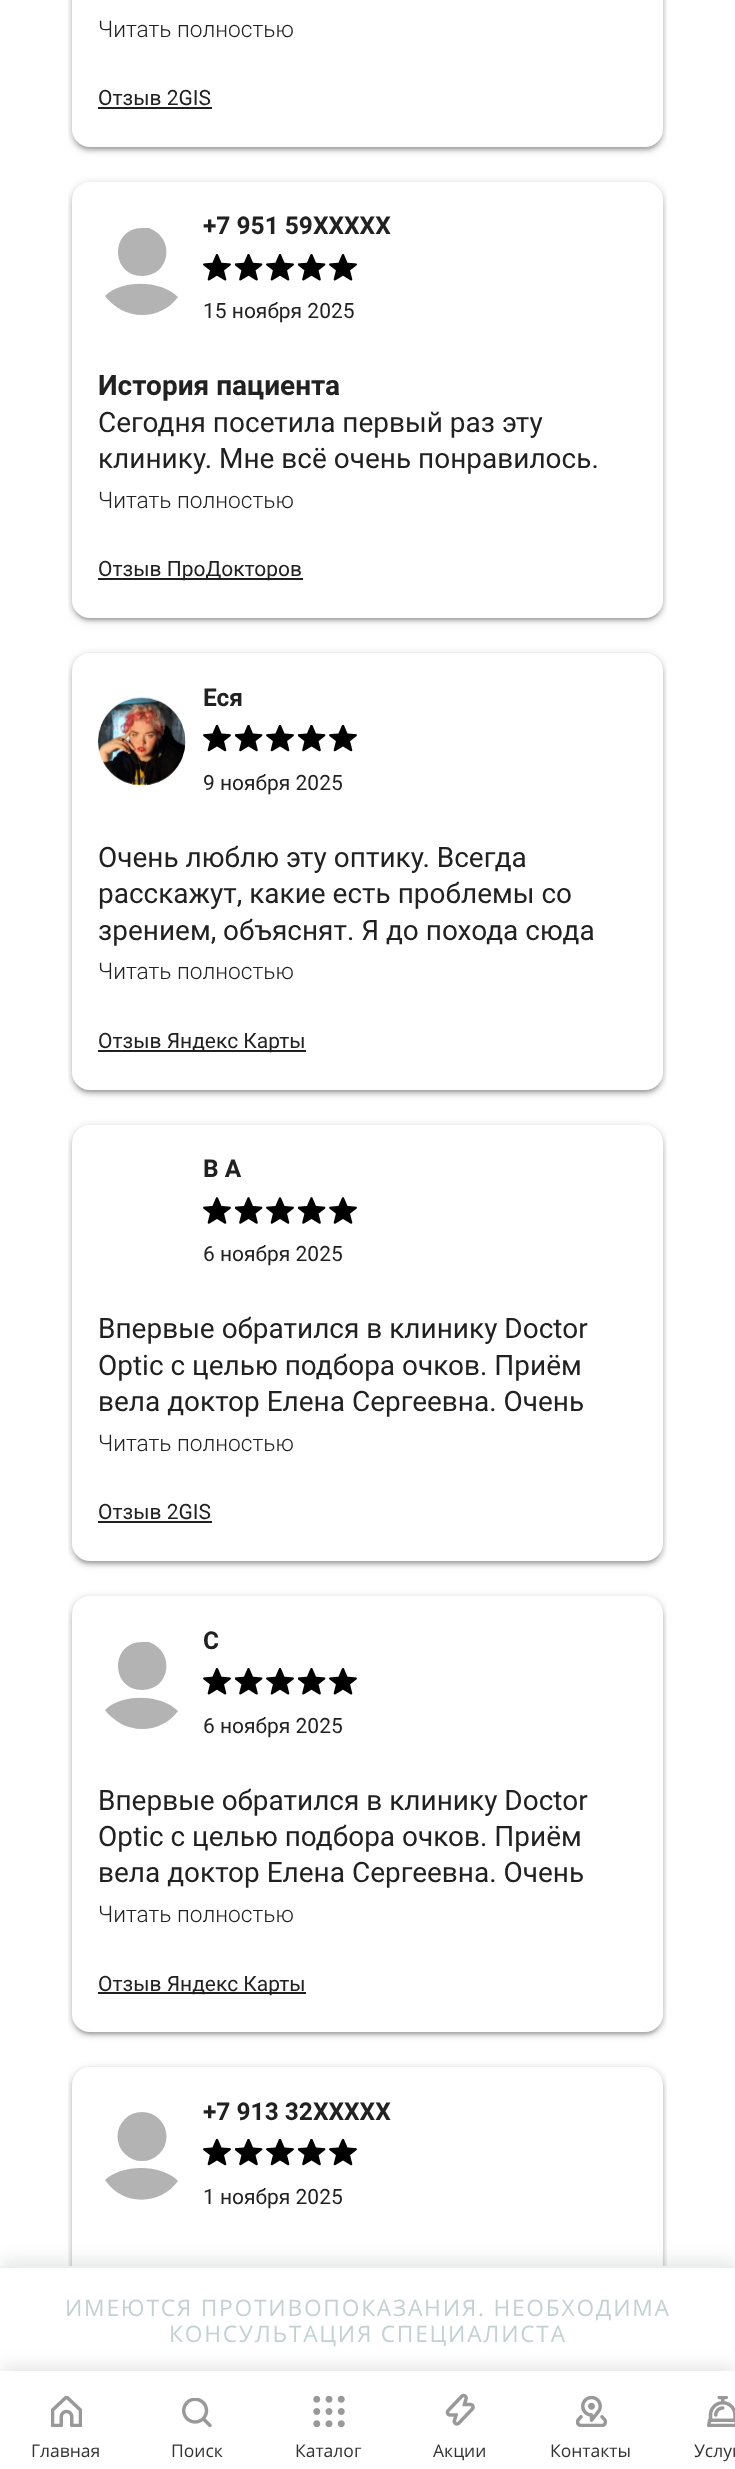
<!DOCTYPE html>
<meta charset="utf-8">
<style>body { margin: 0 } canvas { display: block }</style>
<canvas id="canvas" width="735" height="2469"></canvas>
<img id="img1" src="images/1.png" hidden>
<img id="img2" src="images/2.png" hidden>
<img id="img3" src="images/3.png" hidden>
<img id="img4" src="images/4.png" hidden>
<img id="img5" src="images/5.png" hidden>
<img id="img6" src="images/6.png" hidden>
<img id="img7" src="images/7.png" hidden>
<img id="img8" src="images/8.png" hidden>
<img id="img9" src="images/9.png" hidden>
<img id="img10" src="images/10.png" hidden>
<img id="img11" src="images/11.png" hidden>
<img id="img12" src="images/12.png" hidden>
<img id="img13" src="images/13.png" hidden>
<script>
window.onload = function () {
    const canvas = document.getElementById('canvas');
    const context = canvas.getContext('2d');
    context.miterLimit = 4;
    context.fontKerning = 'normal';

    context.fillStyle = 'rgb(255, 255, 255)';
    context.fillRect(0, 0, 735, 2469);
    context.save();
    context.beginPath();
    context.rect(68, 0, 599, 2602);
    context.clip();
    context.fillStyle = 'rgba(0, 0, 0, 0.2)';
    context.filter = 'blur(4.5px)';
    context.beginPath();
    context.roundRect(72, -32, 591, 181, 18);
    context.fill();
    context.filter = 'none';
    context.restore();
    context.fillStyle = 'rgba(0, 0, 0, 0.12)';
    context.filter = 'blur(1px)';
    context.beginPath();
    context.roundRect(75, -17, 585, 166, 14);
    context.fill();
    context.filter = 'none';
    context.fillStyle = 'rgba(0, 0, 0, 0.14)';
    context.filter = 'blur(2px)';
    context.beginPath();
    context.roundRect(72, -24, 591, 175, 18);
    context.fill();
    context.filter = 'none';
    context.fillStyle = 'rgb(255, 255, 255)';
    context.beginPath();
    context.roundRect(72, -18, 591, 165, 18);
    context.fill();
    context.fillStyle = 'rgb(33, 33, 33)';
    context.fillRect(98, 107, 114, 2);
    context.save();
    context.beginPath();
    context.rect(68, 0, 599, 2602);
    context.clip();
    context.fillStyle = 'rgba(0, 0, 0, 0.2)';
    context.filter = 'blur(4.5px)';
    context.beginPath();
    context.roundRect(72, 184, 591, 436, 18);
    context.fill();
    context.filter = 'none';
    context.restore();
    context.fillStyle = 'rgba(0, 0, 0, 0.12)';
    context.filter = 'blur(1px)';
    context.beginPath();
    context.roundRect(75, 191, 585, 429, 14);
    context.fill();
    context.filter = 'none';
    context.fillStyle = 'rgba(0, 0, 0, 0.14)';
    context.filter = 'blur(2px)';
    context.beginPath();
    context.roundRect(72, 186, 591, 435, 18);
    context.fill();
    context.filter = 'none';
    context.fillStyle = 'rgb(255, 255, 255)';
    context.beginPath();
    context.roundRect(72, 182, 591, 436, 18);
    context.fill();
    context.fillStyle = 'rgb(179, 179, 179)';
    context.beginPath();
    context.moveTo(142, 228);
    context.lineTo(149, 228);
    context.bezierCurveTo(176, 238, 170, 276, 142, 276);
    context.bezierCurveTo(110, 276, 110, 228, 142, 228);
    context.closePath();
    context.fill();
    context.beginPath();
    context.moveTo(142, 315);
    context.bezierCurveTo(156, 315, 169, 309, 178, 297);
    context.bezierCurveTo(161, 280, 122, 279, 105, 296);
    context.bezierCurveTo(113, 307, 127, 315, 142, 315);
    context.closePath();
    context.fill();
    context.drawImage(document.getElementById('img1'), 203, 254, 28, 27);
    context.drawImage(document.getElementById('img2'), 235, 254, 28, 27);
    context.drawImage(document.getElementById('img1'), 266, 254, 28, 27);
    context.drawImage(document.getElementById('img2'), 298, 254, 28, 27);
    context.drawImage(document.getElementById('img1'), 329, 254, 28, 27);
    context.fillStyle = 'rgb(33, 33, 33)';
    context.fillRect(98, 578, 205, 2);
    context.save();
    context.beginPath();
    context.rect(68, 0, 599, 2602);
    context.clip();
    context.fillStyle = 'rgba(0, 0, 0, 0.2)';
    context.filter = 'blur(4.5px)';
    context.beginPath();
    context.roundRect(72, 655, 591, 437, 18);
    context.fill();
    context.filter = 'none';
    context.restore();
    context.fillStyle = 'rgba(0, 0, 0, 0.12)';
    context.filter = 'blur(1px)';
    context.beginPath();
    context.roundRect(75, 662, 585, 430, 14);
    context.fill();
    context.filter = 'none';
    context.fillStyle = 'rgba(0, 0, 0, 0.14)';
    context.filter = 'blur(2px)';
    context.beginPath();
    context.roundRect(72, 656, 591, 438, 18);
    context.fill();
    context.filter = 'none';
    context.fillStyle = 'rgb(255, 255, 255)';
    context.beginPath();
    context.roundRect(72, 653, 591, 437, 18);
    context.fill();
    context.drawImage(document.getElementById('img3'), 98, 697, 88, 89);
    context.drawImage(document.getElementById('img4'), 203, 725, 28, 27);
    context.drawImage(document.getElementById('img5'), 235, 725, 28, 27);
    context.drawImage(document.getElementById('img4'), 266, 725, 28, 27);
    context.drawImage(document.getElementById('img5'), 298, 725, 28, 27);
    context.drawImage(document.getElementById('img4'), 329, 725, 28, 27);
    context.fillStyle = 'rgb(33, 33, 33)';
    context.fillRect(98, 1050, 208, 2);
    context.save();
    context.beginPath();
    context.rect(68, 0, 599, 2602);
    context.clip();
    context.fillStyle = 'rgba(0, 0, 0, 0.2)';
    context.filter = 'blur(4.5px)';
    context.beginPath();
    context.roundRect(72, 1127, 591, 436, 18);
    context.fill();
    context.filter = 'none';
    context.restore();
    context.fillStyle = 'rgba(0, 0, 0, 0.12)';
    context.filter = 'blur(1px)';
    context.beginPath();
    context.roundRect(75, 1134, 585, 429, 14);
    context.fill();
    context.filter = 'none';
    context.fillStyle = 'rgba(0, 0, 0, 0.14)';
    context.filter = 'blur(2px)';
    context.beginPath();
    context.roundRect(72, 1129, 591, 436, 18);
    context.fill();
    context.filter = 'none';
    context.fillStyle = 'rgb(255, 255, 255)';
    context.beginPath();
    context.roundRect(72, 1125, 591, 436, 18);
    context.fill();
    context.drawImage(document.getElementById('img6'), 203, 1197, 28, 27);
    context.drawImage(document.getElementById('img7'), 235, 1197, 28, 27);
    context.drawImage(document.getElementById('img6'), 266, 1197, 28, 27);
    context.drawImage(document.getElementById('img7'), 298, 1197, 28, 27);
    context.drawImage(document.getElementById('img6'), 329, 1197, 28, 27);
    context.fillStyle = 'rgb(33, 33, 33)';
    context.fillRect(98, 1521, 114, 2);
    context.save();
    context.beginPath();
    context.rect(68, 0, 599, 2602);
    context.clip();
    context.fillStyle = 'rgba(0, 0, 0, 0.2)';
    context.filter = 'blur(4.5px)';
    context.beginPath();
    context.roundRect(72, 1598, 591, 436, 18);
    context.fill();
    context.filter = 'none';
    context.restore();
    context.fillStyle = 'rgba(0, 0, 0, 0.12)';
    context.filter = 'blur(1px)';
    context.beginPath();
    context.roundRect(75, 1605, 585, 429, 14);
    context.fill();
    context.filter = 'none';
    context.fillStyle = 'rgba(0, 0, 0, 0.14)';
    context.filter = 'blur(2px)';
    context.beginPath();
    context.roundRect(72, 1600, 591, 435, 18);
    context.fill();
    context.filter = 'none';
    context.fillStyle = 'rgb(255, 255, 255)';
    context.beginPath();
    context.roundRect(72, 1596, 591, 436, 18);
    context.fill();
    context.fillStyle = 'rgb(179, 179, 179)';
    context.beginPath();
    context.moveTo(142, 1642);
    context.lineTo(149, 1642);
    context.bezierCurveTo(176, 1652, 170, 1690, 142, 1690);
    context.bezierCurveTo(110, 1690, 110, 1642, 142, 1642);
    context.closePath();
    context.fill();
    context.beginPath();
    context.moveTo(142, 1729);
    context.bezierCurveTo(156, 1729, 169, 1723, 178, 1711);
    context.bezierCurveTo(161, 1694, 122, 1693, 105, 1710);
    context.bezierCurveTo(113, 1721, 127, 1729, 142, 1729);
    context.closePath();
    context.fill();
    context.drawImage(document.getElementById('img1'), 203, 1668, 28, 27);
    context.drawImage(document.getElementById('img2'), 235, 1668, 28, 27);
    context.drawImage(document.getElementById('img1'), 266, 1668, 28, 27);
    context.drawImage(document.getElementById('img2'), 298, 1668, 28, 27);
    context.drawImage(document.getElementById('img1'), 329, 1668, 28, 27);
    context.fillStyle = 'rgb(33, 33, 33)';
    context.fillRect(98, 1992, 208, 2);
    context.save();
    context.beginPath();
    context.rect(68, 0, 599, 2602);
    context.clip();
    context.fillStyle = 'rgba(0, 0, 0, 0.2)';
    context.filter = 'blur(4.5px)';
    context.beginPath();
    context.roundRect(72, 2069, 591, 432, 18);
    context.fill();
    context.filter = 'none';
    context.restore();
    context.fillStyle = 'rgba(0, 0, 0, 0.14)';
    context.filter = 'blur(2px)';
    context.beginPath();
    context.roundRect(72, 2070, 591, 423, 18);
    context.fill();
    context.filter = 'none';
    context.fillStyle = 'rgb(255, 255, 255)';
    context.beginPath();
    context.roundRect(72, 2067, 591, 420, 18);
    context.fill();
    context.fillStyle = 'rgb(179, 179, 179)';
    context.beginPath();
    context.arc(142, 2136.5, 24.5, 0, 2 * Math.PI);
    context.fill();
    context.beginPath();
    context.moveTo(178, 2181);
    context.bezierCurveTo(160, 2206, 122, 2206, 105, 2180);
    context.bezierCurveTo(122, 2164, 161, 2164, 178, 2181);
    context.closePath();
    context.fill();
    context.drawImage(document.getElementById('img4'), 203, 2139, 28, 27);
    context.drawImage(document.getElementById('img5'), 235, 2139, 28, 27);
    context.drawImage(document.getElementById('img4'), 266, 2139, 28, 27);
    context.drawImage(document.getElementById('img5'), 298, 2139, 28, 27);
    context.drawImage(document.getElementById('img4'), 329, 2139, 28, 27);
    context.fillStyle = 'rgba(0, 0, 0, 0.1)';
    context.filter = 'blur(9px)';
    context.beginPath();
    context.rect(0, 2261, 735, 105);
    context.fill();
    context.filter = 'none';
    context.fillStyle = 'rgb(255, 255, 255)';
    context.fillRect(0, 2268, 735, 103);
    context.fillStyle = 'rgb(234, 239, 241)';
    context.fillRect(0, 2266, 735, 2);
    context.fillStyle = 'rgba(0, 0, 0, 0.1)';
    context.filter = 'blur(9px)';
    context.beginPath();
    context.rect(0, 2366, 735, 98);
    context.fill();
    context.filter = 'none';
    context.fillStyle = 'rgb(255, 255, 255)';
    context.fillRect(0, 2371, 735, 98);
    context.drawImage(document.getElementById('img8'), 51, 2396, 31, 31);
    context.drawImage(document.getElementById('img9'), 182, 2398, 30, 29);
    context.drawImage(document.getElementById('img10'), 313, 2396, 32, 31);
    context.drawImage(document.getElementById('img11'), 445, 2393, 30, 33);
    context.drawImage(document.getElementById('img12'), 576, 2396, 31, 31);
    context.drawImage(document.getElementById('img13'), 707, 2396, 28, 31);
    context.font = '300 22.75px Roboto';
    context.fillStyle = 'rgb(33, 33, 33)';
    context.fillText('Читать полностью', 98, 37);
    context.font = '21px Roboto';
    context.fillText('Отзыв 2GIS', 98, 105);
    context.font = 'bold 24.5px Roboto';
    context.fillText('+7 951 59XXXXX', 203, 234);
    context.font = '21px Roboto';
    context.fillText('15 ноября 2025', 203, 318);
    context.font = 'bold 28px Roboto';
    context.fillText('История пациента', 98, 395);
    context.font = '28px Roboto';
    context.fillText('Сегодня посетила первый раз эту', 98, 432);
    context.fillText('клинику. Мне всё очень понравилось.', 98, 468);
    context.font = '300 22.75px Roboto';
    context.fillText('Читать полностью', 98, 508);
    context.font = '21px Roboto';
    context.fillText('Отзыв ПроДокторов', 98, 576);
    context.font = 'bold 24.5px Roboto';
    context.fillText('Еся', 203, 706);
    context.font = '21px Roboto';
    context.fillText('9 ноября 2025', 203, 790);
    context.font = '28px Roboto';
    context.fillText('Очень люблю эту оптику. Всегда', 98, 867);
    context.fillText('расскажут, какие есть проблемы со', 98, 903);
    context.fillText('зрением, объяснят. Я до похода сюда', 98, 940);
    context.font = '300 22.75px Roboto';
    context.fillText('Читать полностью', 98, 979);
    context.font = '21px Roboto';
    context.fillText('Отзыв Яндекс Карты', 98, 1048);
    context.font = 'bold 24.5px Roboto';
    context.fillText('В А', 203, 1177);
    context.font = '21px Roboto';
    context.fillText('6 ноября 2025', 203, 1261);
    context.font = '28px Roboto';
    context.fillText('Впервые обратился в клинику Doctor', 98, 1338);
    context.fillText('Optic с целью подбора очков. Приём', 98, 1375);
    context.fillText('вела доктор Елена Сергеевна. Очень', 98, 1411);
    context.font = '300 22.75px Roboto';
    context.fillText('Читать полностью', 98, 1451);
    context.font = '21px Roboto';
    context.fillText('Отзыв 2GIS', 98, 1519);
    context.font = 'bold 24.5px Roboto';
    context.fillText('С', 203, 1649);
    context.font = '21px Roboto';
    context.fillText('6 ноября 2025', 203, 1733);
    context.font = '28px Roboto';
    context.fillText('Впервые обратился в клинику Doctor', 98, 1810);
    context.fillText('Optic с целью подбора очков. Приём', 98, 1846);
    context.fillText('вела доктор Елена Сергеевна. Очень', 98, 1882);
    context.font = '300 22.75px Roboto';
    context.fillText('Читать полностью', 98, 1922);
    context.font = '21px Roboto';
    context.fillText('Отзыв Яндекс Карты', 98, 1991);
    context.font = 'bold 24.5px Roboto';
    context.fillText('+7 913 32XXXXX', 203, 2120);
    context.font = '21px Roboto';
    context.fillText('1 ноября 2025', 203, 2204);
    context.letterSpacing = '1.75px';
    context.font = '22.75px Open Sans';
    context.fillStyle = 'rgb(195, 209, 213)';
    context.fillText('ИМЕЮТСЯ ПРОТИВОПОКАЗАНИЯ. НЕОБХОДИМА', 65, 2316);
    context.fillText('КОНСУЛЬТАЦИЯ СПЕЦИАЛИСТА', 169, 2342);
    context.letterSpacing = '0px';
    context.font = '17.5px Open Sans';
    context.fillStyle = 'rgb(51, 51, 51)';
    context.fillText('Главная', 31, 2457);
    context.fillText('Поиск', 171, 2457);
    context.fillText('Каталог', 295, 2457);
    context.fillText('Акции', 433, 2457);
    context.fillText('Контакты', 550, 2457);
    context.fillText('Услуг', 694, 2457);
};
</script>
